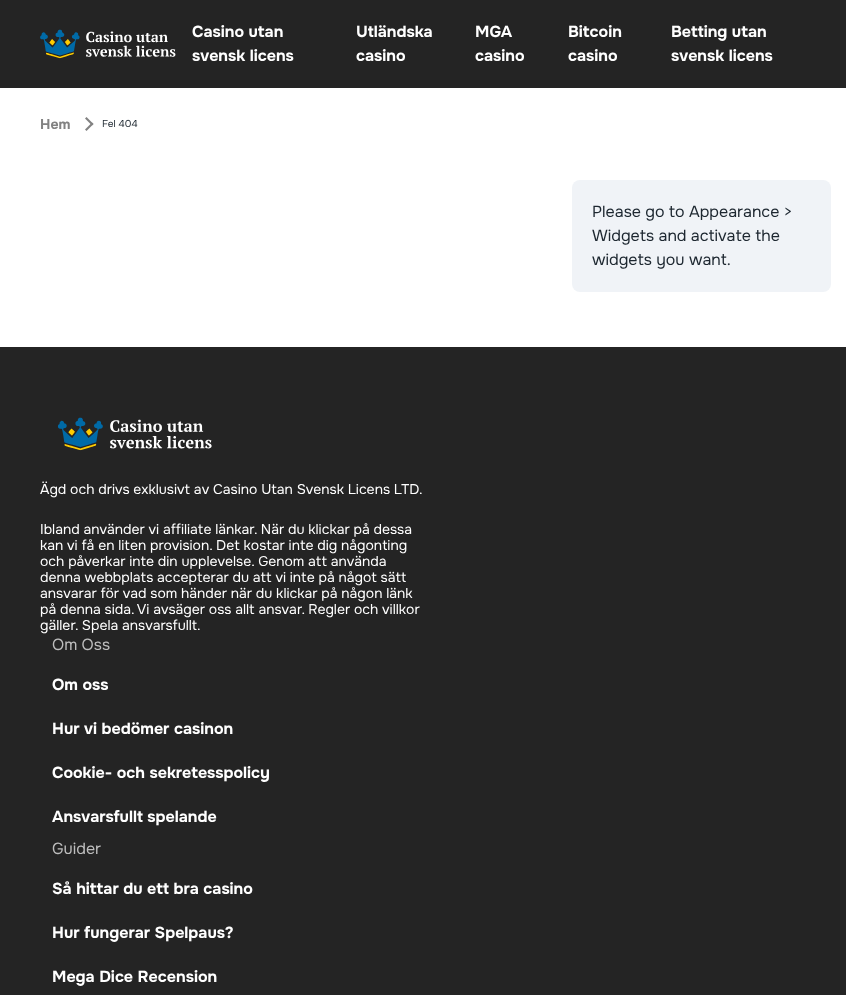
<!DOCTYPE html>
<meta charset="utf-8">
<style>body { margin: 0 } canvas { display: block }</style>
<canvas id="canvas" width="846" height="995"></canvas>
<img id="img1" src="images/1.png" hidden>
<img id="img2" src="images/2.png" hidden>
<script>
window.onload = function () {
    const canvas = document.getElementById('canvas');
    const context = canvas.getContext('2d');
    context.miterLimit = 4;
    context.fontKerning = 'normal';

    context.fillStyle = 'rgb(255, 255, 255)';
    context.fillRect(0, 0, 846, 995);
    context.fillStyle = 'rgb(36, 36, 36)';
    context.fillRect(0, 0, 846, 88);
    context.drawImage(document.getElementById('img1'), 40, 29, 136, 30);
    context.fillStyle = 'rgb(130, 130, 130)';
    context.beginPath();
    context.moveTo(85, 118.5);
    context.lineTo(86.5, 117);
    context.lineTo(93.5, 124);
    context.lineTo(92, 125.5);
    context.closePath();
    context.fill();
    context.beginPath();
    context.moveTo(85, 129.5);
    context.lineTo(92, 122.5);
    context.lineTo(93.5, 124);
    context.lineTo(86.5, 131);
    context.closePath();
    context.fill();
    context.fillStyle = 'rgb(240, 243, 247)';
    context.beginPath();
    context.roundRect(572, 180, 259, 112, 8);
    context.fill();
    context.fillStyle = 'rgb(36, 36, 36)';
    context.fillRect(0, 347, 846, 648);
    context.drawImage(document.getElementById('img2'), 57, 417, 155, 34);
    context.font = 'bold 16px Onest';
    context.fillStyle = 'rgb(255, 255, 255)';
    context.fillText('Casino utan', 192, 37);
    context.fillText('svensk licens', 192, 61);
    context.fillText('Utländska', 356, 37);
    context.fillText('casino', 356, 61);
    context.fillText('MGA', 475, 37);
    context.fillText('casino', 475, 61);
    context.fillText('Bitcoin', 568, 37);
    context.fillText('casino', 568, 61);
    context.fillText('Betting utan', 671, 37);
    context.fillText('svensk licens', 671, 61);
    context.font = 'bold 14px Onest';
    context.fillStyle = 'rgb(130, 130, 130)';
    context.fillText('Hem', 40, 129);
    context.font = '10px Onest';
    context.fillStyle = 'rgb(29, 39, 48)';
    context.fillText('Fel 404', 102, 127);
    context.font = '16px Onest';
    context.fillText('Please go to Appearance >', 592, 217);
    context.fillText('Widgets and activate the', 592, 241);
    context.fillText('widgets you want.', 592, 265);
    context.font = '14px Onest';
    context.fillStyle = 'rgb(255, 255, 255)';
    context.fillText('Ägd och drivs exklusivt av Casino Utan Svensk Licens LTD.', 40, 494);
    context.fillText('Ibland använder vi affiliate länkar. När du klickar på dessa', 40, 534);
    context.fillText('kan vi få en liten provision. Det kostar inte dig någonting', 40, 550);
    context.fillText('och påverkar inte din upplevelse. Genom att använda', 40, 566);
    context.fillText('denna webbplats accepterar du att vi inte på något sätt', 40, 582);
    context.fillText('ansvarar för vad som händer när du klickar på någon länk', 40, 598);
    context.fillText('på denna sida. Vi avsäger oss allt ansvar. Regler och villkor', 40, 614);
    context.fillText('gäller. Spela ansvarsfullt.', 40, 630);
    context.font = '16px Onest';
    context.fillStyle = 'rgb(189, 189, 189)';
    context.fillText('Om Oss', 52, 650);
    context.font = 'bold 16px Onest';
    context.fillStyle = 'rgb(255, 255, 255)';
    context.fillText('Om oss', 52, 690);
    context.fillText('Hur vi bedömer casinon', 52, 734);
    context.fillText('Cookie- och sekretesspolicy', 52, 778);
    context.fillText('Ansvarsfullt spelande', 52, 822);
    context.font = '16px Onest';
    context.fillStyle = 'rgb(189, 189, 189)';
    context.fillText('Guider', 52, 854);
    context.font = 'bold 16px Onest';
    context.fillStyle = 'rgb(255, 255, 255)';
    context.fillText('Så hittar du ett bra casino', 52, 894);
    context.fillText('Hur fungerar Spelpaus?', 52, 938);
    context.fillText('Mega Dice Recension', 52, 982);
};
</script>
